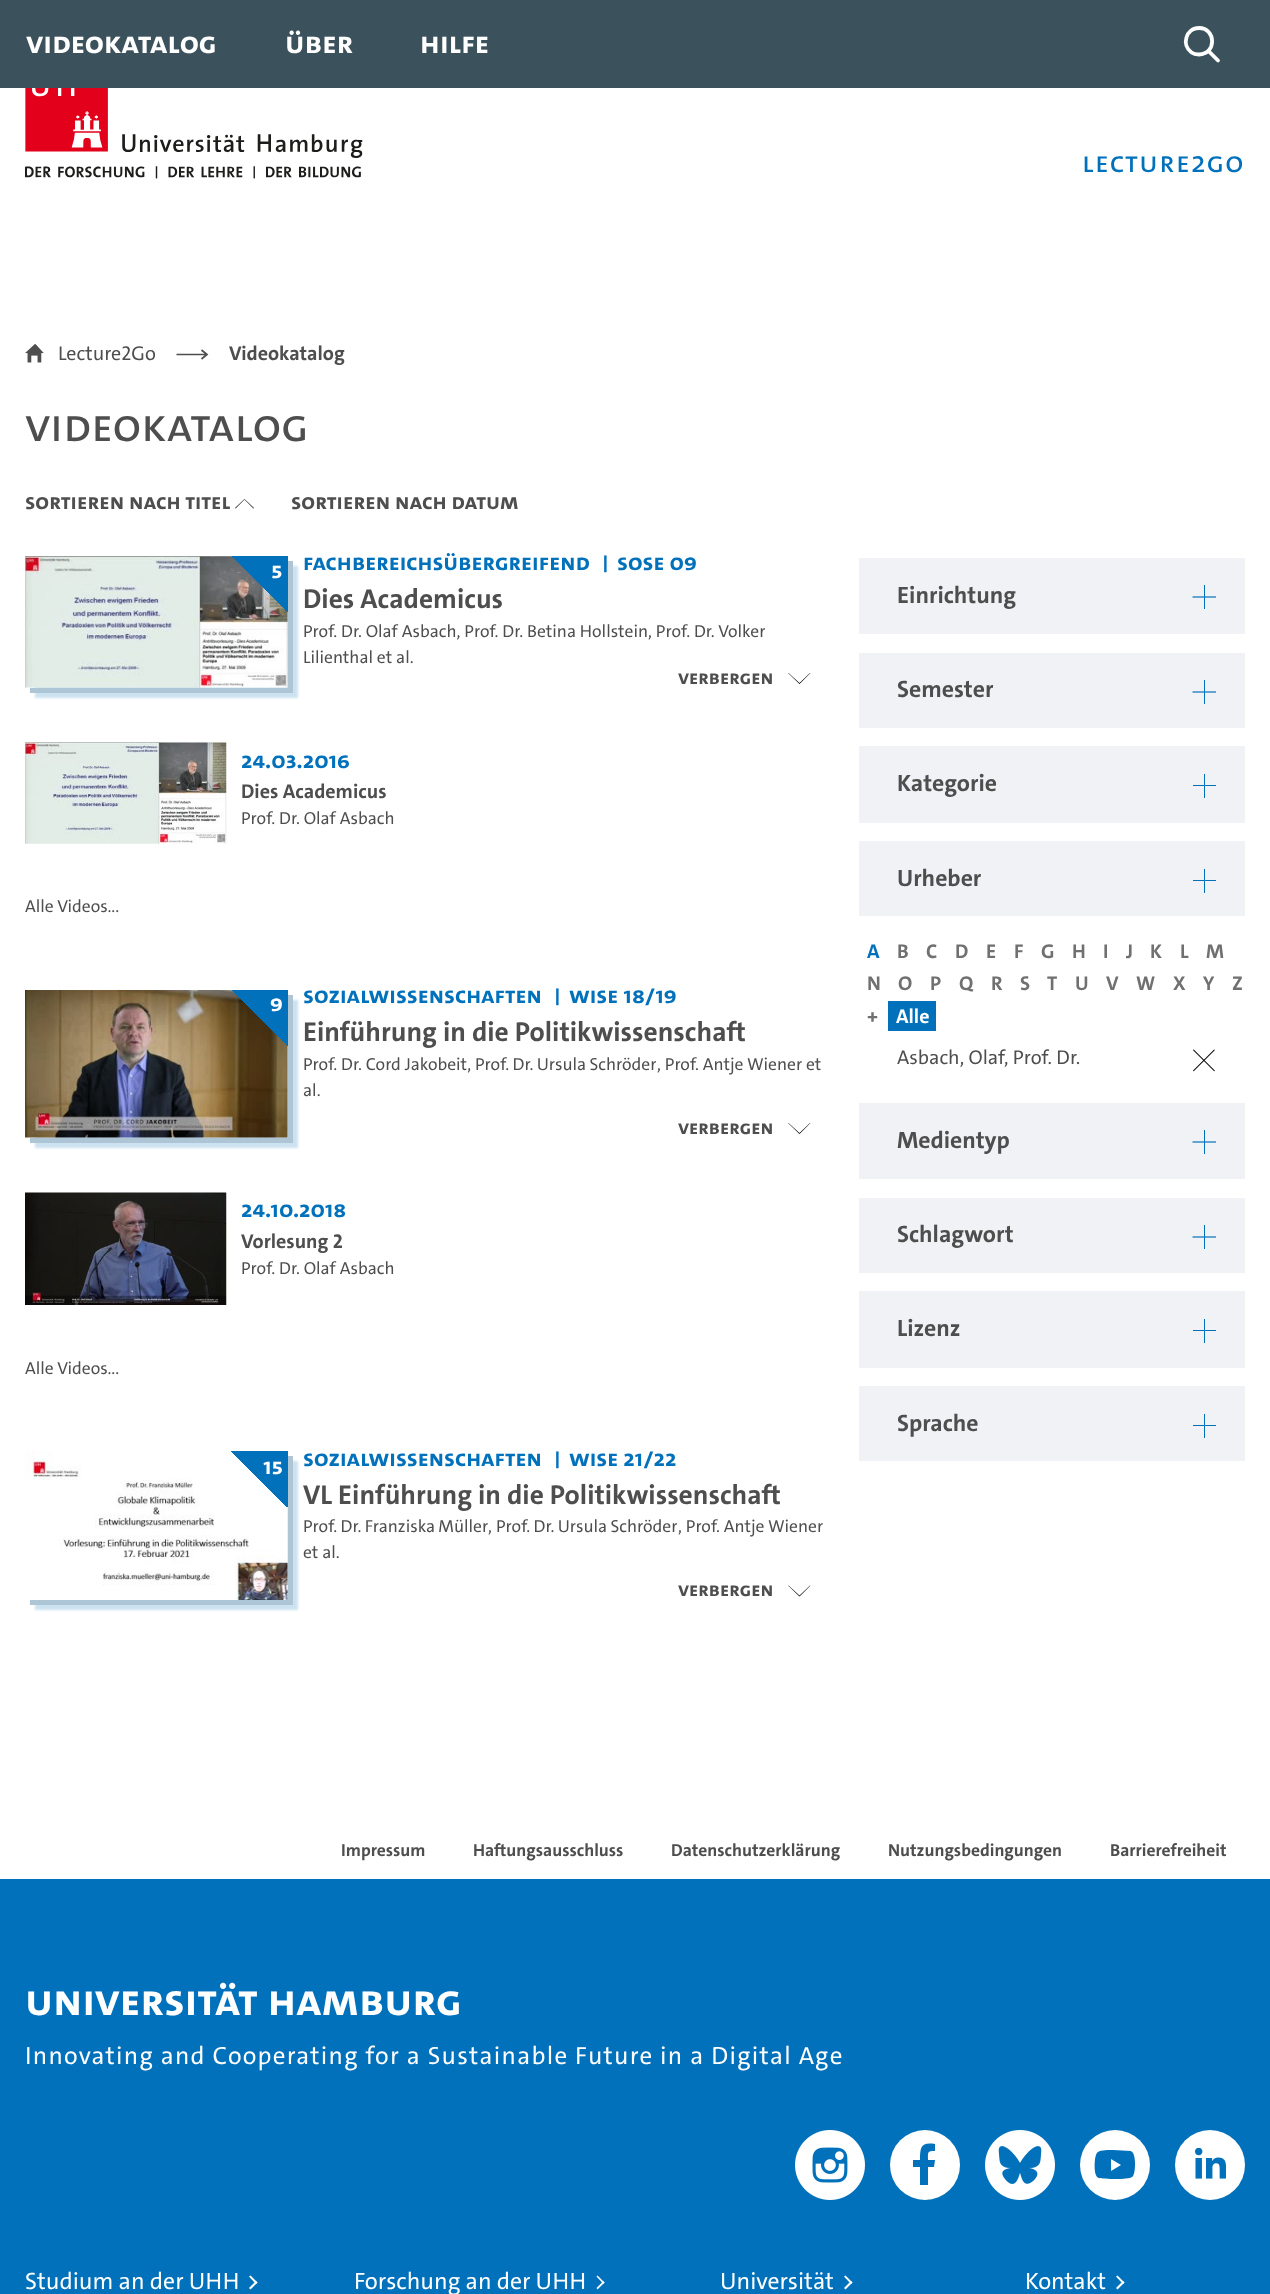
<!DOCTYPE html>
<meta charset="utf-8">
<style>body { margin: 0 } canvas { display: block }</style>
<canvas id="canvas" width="1270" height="2294"></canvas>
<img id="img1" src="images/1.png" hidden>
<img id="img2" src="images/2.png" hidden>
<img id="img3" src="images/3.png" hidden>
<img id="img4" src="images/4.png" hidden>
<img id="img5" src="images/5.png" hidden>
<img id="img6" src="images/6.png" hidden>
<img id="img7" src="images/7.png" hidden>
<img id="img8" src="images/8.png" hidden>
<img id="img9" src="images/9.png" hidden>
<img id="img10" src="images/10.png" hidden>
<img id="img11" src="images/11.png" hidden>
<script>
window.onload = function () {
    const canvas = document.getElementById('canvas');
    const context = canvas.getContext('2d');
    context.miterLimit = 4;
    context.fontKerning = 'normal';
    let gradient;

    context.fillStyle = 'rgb(255, 255, 255)';
    context.fillRect(0, 0, 1270, 2294);
    context.fillStyle = 'rgb(59, 81, 92)';
    context.fillRect(0, 0, 1270, 88);
    context.beginPath();
    context.moveTo(1199, 54.5);
    context.bezierCurveTo(1216.5, 54.5, 1216.5, 28, 1199, 28);
    context.bezierCurveTo(1186, 28, 1181, 45, 1191.5, 52.5);
    context.bezierCurveTo(1193.5, 54, 1196, 54.5, 1199, 54.5);
    context.closePath();
    context.moveTo(1208.5, 51);
    context.lineTo(1218, 60.5);
    context.strokeStyle = 'rgb(255, 255, 255)';
    context.lineWidth = 3.8;
    context.lineCap = 'round';
    context.stroke();
    context.drawImage(document.getElementById('img1'), 25, 88, 338, 91);
    context.drawImage(document.getElementById('img2'), 25, 344, 19, 19);
    context.beginPath();
    context.moveTo(176.5, 354.5);
    context.lineTo(206, 354.5);
    context.moveTo(201.5, 350);
    context.lineTo(207, 354.5);
    context.lineTo(201.5, 359);
    context.strokeStyle = 'rgb(78, 78, 78)';
    context.lineWidth = 1.7;
    context.lineCap = 'butt';
    context.stroke();
    context.fillStyle = 'rgb(1, 1, 1)';
    context.beginPath();
    context.moveTo(253.5, 508.5);
    context.lineTo(244.5, 499.5);
    context.lineTo(235.5, 508.5);
    context.lineTo(235, 508);
    context.lineTo(244.5, 499);
    context.lineTo(254, 508);
    context.closePath();
    context.fill();
    context.fillStyle = 'rgb(204, 226, 240)';
    context.filter = 'blur(1px)';
    context.beginPath();
    context.rect(35, 566, 263, 132);
    context.fill();
    context.filter = 'none';
    context.fillStyle = 'rgb(173, 197, 213)';
    context.beginPath();
    context.moveTo(30, 688);
    context.lineTo(30, 693);
    context.lineTo(293, 693);
    context.lineTo(293, 561);
    context.lineTo(288, 561);
    context.lineTo(288, 688);
    context.closePath();
    context.fill();
    context.drawImage(document.getElementById('img3'), 25, 556, 263, 132);
    gradient = context.createLinearGradient(231, 613, 288, 556);
    gradient.addColorStop(0, 'rgba(0, 0, 0, 0)');
    gradient.addColorStop(0.5, 'rgba(2, 113, 187, 0)');
    gradient.addColorStop(0.5, 'rgb(2, 113, 187)');
    gradient.addColorStop(1, 'rgb(2, 113, 187)');
    context.fillStyle = gradient;
    context.fillRect(231, 556, 57, 56);
    context.fillStyle = 'rgb(1, 1, 1)';
    context.beginPath();
    context.moveTo(788.5, 673);
    context.lineTo(799.5, 683);
    context.lineTo(810, 673);
    context.lineTo(810.5, 673);
    context.lineTo(799.5, 684);
    context.lineTo(788, 673);
    context.closePath();
    context.fill();
    context.drawImage(document.getElementById('img4'), 25, 742, 202, 102);
    context.fillStyle = 'rgb(204, 226, 240)';
    context.filter = 'blur(1px)';
    context.beginPath();
    context.rect(35, 1000, 263, 148);
    context.fill();
    context.filter = 'none';
    context.fillStyle = 'rgb(173, 197, 213)';
    context.beginPath();
    context.moveTo(30, 1138);
    context.lineTo(30, 1143);
    context.lineTo(293, 1143);
    context.lineTo(293, 995);
    context.lineTo(288, 995);
    context.lineTo(288, 1138);
    context.closePath();
    context.fill();
    context.drawImage(document.getElementById('img5'), 25, 990, 263, 148);
    gradient = context.createLinearGradient(231, 1046, 288, 990);
    gradient.addColorStop(0, 'rgba(0, 0, 0, 0)');
    gradient.addColorStop(0.5, 'rgba(2, 113, 187, 0)');
    gradient.addColorStop(0.5, 'rgb(2, 113, 187)');
    gradient.addColorStop(1, 'rgb(2, 113, 187)');
    context.fillStyle = gradient;
    context.fillRect(232, 990, 56, 56);
    context.fillStyle = 'rgb(1, 1, 1)';
    context.beginPath();
    context.moveTo(788.5, 1123);
    context.lineTo(799.5, 1133);
    context.lineTo(810, 1123);
    context.lineTo(810.5, 1123);
    context.lineTo(799.5, 1134);
    context.lineTo(788, 1123);
    context.closePath();
    context.fill();
    context.drawImage(document.getElementById('img6'), 25, 1192, 202, 113);
    context.fillStyle = 'rgb(204, 226, 240)';
    context.filter = 'blur(1px)';
    context.beginPath();
    context.rect(35, 1461, 263, 149);
    context.fill();
    context.filter = 'none';
    context.fillStyle = 'rgb(173, 197, 213)';
    context.beginPath();
    context.moveTo(30, 1600);
    context.lineTo(30, 1605);
    context.lineTo(293, 1605);
    context.lineTo(293, 1456);
    context.lineTo(288, 1456);
    context.lineTo(288, 1600);
    context.closePath();
    context.fill();
    context.drawImage(document.getElementById('img7'), 25, 1451, 263, 149);
    gradient = context.createLinearGradient(231, 1508, 288, 1451);
    gradient.addColorStop(0, 'rgba(0, 0, 0, 0)');
    gradient.addColorStop(0.5, 'rgba(2, 113, 187, 0)');
    gradient.addColorStop(0.5, 'rgb(2, 113, 187)');
    gradient.addColorStop(1, 'rgb(2, 113, 187)');
    context.fillStyle = gradient;
    context.fillRect(231, 1451, 57, 56);
    context.fillStyle = 'rgb(1, 1, 1)';
    context.beginPath();
    context.moveTo(788.5, 1585.5);
    context.lineTo(799.5, 1595.5);
    context.lineTo(810, 1585.5);
    context.lineTo(810.5, 1585.5);
    context.lineTo(799.5, 1596.5);
    context.lineTo(788, 1585.5);
    context.closePath();
    context.fill();
    context.fillStyle = 'rgb(241, 242, 245)';
    context.fillRect(859, 558, 386, 76);
    context.beginPath();
    context.moveTo(1192.5, 597);
    context.lineTo(1216, 597);
    context.strokeStyle = 'rgb(2, 113, 187)';
    context.lineWidth = 1.2;
    context.stroke();
    context.fillStyle = 'rgb(2, 113, 187)';
    context.fillRect(1204, 585, 1, 24);
    context.fillStyle = 'rgb(241, 242, 245)';
    context.fillRect(859, 653, 386, 75);
    context.beginPath();
    context.moveTo(1192.5, 692);
    context.lineTo(1216, 692);
    context.stroke();
    context.fillStyle = 'rgb(2, 113, 187)';
    context.fillRect(1204, 680, 1, 24);
    context.fillStyle = 'rgb(241, 242, 245)';
    context.fillRect(859, 746, 386, 77);
    context.fillStyle = 'rgb(2, 113, 187)';
    context.fillRect(1193, 785, 23, 1);
    context.fillRect(1204, 774, 1, 24);
    context.fillStyle = 'rgb(241, 242, 245)';
    context.fillRect(859, 841, 386, 75);
    context.fillStyle = 'rgb(2, 113, 187)';
    context.fillRect(1193, 880, 23, 1);
    context.fillRect(1204, 869, 1, 24);
    context.fillRect(888, 1001, 48, 30);
    context.drawImage(document.getElementById('img8'), 1193, 1049, 22, 23);
    context.fillStyle = 'rgb(241, 242, 245)';
    context.fillRect(859, 1103, 386, 76);
    context.beginPath();
    context.moveTo(1192.5, 1142);
    context.lineTo(1216, 1142);
    context.stroke();
    context.fillStyle = 'rgb(2, 113, 187)';
    context.fillRect(1204, 1130, 1, 24);
    context.fillStyle = 'rgb(241, 242, 245)';
    context.fillRect(859, 1198, 386, 75);
    context.beginPath();
    context.moveTo(1192.5, 1237);
    context.lineTo(1216, 1237);
    context.stroke();
    context.fillStyle = 'rgb(2, 113, 187)';
    context.fillRect(1204, 1225, 1, 24);
    context.fillStyle = 'rgb(241, 242, 245)';
    context.fillRect(859, 1291, 386, 77);
    context.fillStyle = 'rgb(2, 113, 187)';
    context.fillRect(1193, 1330, 23, 1);
    context.fillRect(1204, 1319, 1, 24);
    context.fillStyle = 'rgb(241, 242, 245)';
    context.fillRect(859, 1386, 386, 75);
    context.fillStyle = 'rgb(2, 113, 187)';
    context.fillRect(1193, 1425, 23, 1);
    context.fillRect(1204, 1414, 1, 24);
    context.fillRect(0, 1879, 1270, 415);
    context.drawImage(document.getElementById('img9'), 795, 2130, 70, 70);
    context.fillStyle = 'rgb(255, 255, 255)';
    context.beginPath();
    context.arc(925, 2165, 35, 0, 2 * Math.PI);
    context.fill();
    context.fillStyle = 'rgb(2, 113, 187)';
    context.beginPath();
    context.moveTo(934, 2167);
    context.lineTo(935, 2160);
    context.lineTo(928, 2160);
    context.bezierCurveTo(928, 2152, 927, 2151, 935, 2151);
    context.lineTo(935, 2144);
    context.bezierCurveTo(921, 2142, 920, 2147, 920, 2160);
    context.lineTo(913, 2160);
    context.lineTo(913, 2167);
    context.lineTo(920, 2167);
    context.lineTo(920, 2185);
    context.lineTo(928, 2185);
    context.lineTo(928, 2167);
    context.closePath();
    context.fill();
    context.drawImage(document.getElementById('img10'), 985, 2130, 70, 70);
    context.fillStyle = 'rgb(255, 255, 255)';
    context.beginPath();
    context.arc(1115, 2165, 35, 0, 2 * Math.PI);
    context.fill();
    context.fillStyle = 'rgb(2, 113, 187)';
    context.beginPath();
    context.moveTo(1131, 2151);
    context.lineTo(1132, 2152);
    context.bezierCurveTo(1136, 2154, 1136, 2175, 1132, 2177);
    context.bezierCurveTo(1128, 2180, 1104, 2179, 1099, 2178);
    context.bezierCurveTo(1098, 2178, 1096, 2176, 1096, 2175);
    context.bezierCurveTo(1094, 2171, 1094, 2154, 1098, 2152);
    context.bezierCurveTo(1101, 2150, 1109, 2150, 1113, 2150);
    context.closePath();
    context.moveTo(1111, 2159);
    context.lineTo(1111, 2171);
    context.lineTo(1121, 2165);
    context.closePath();
    context.fill('evenodd');
    context.drawImage(document.getElementById('img11'), 1175, 2130, 70, 70);
    context.fillStyle = 'rgb(255, 255, 255)';
    context.beginPath();
    context.moveTo(250.5, 2275.5);
    context.lineTo(257.5, 2282.5);
    context.lineTo(256, 2284);
    context.lineTo(249, 2276.5);
    context.closePath();
    context.fill();
    context.beginPath();
    context.moveTo(256, 2281);
    context.lineTo(257.5, 2282.5);
    context.lineTo(250.5, 2289.5);
    context.lineTo(249, 2288);
    context.closePath();
    context.fill();
    context.beginPath();
    context.moveTo(597.5, 2275.5);
    context.lineTo(604.5, 2282.5);
    context.lineTo(603.5, 2284);
    context.lineTo(596.5, 2276.5);
    context.closePath();
    context.fill();
    context.beginPath();
    context.moveTo(603.5, 2281);
    context.lineTo(604.5, 2282.5);
    context.lineTo(597.5, 2289.5);
    context.lineTo(596.5, 2288);
    context.closePath();
    context.fill();
    context.beginPath();
    context.moveTo(845.5, 2275.5);
    context.lineTo(852.5, 2282.5);
    context.lineTo(851, 2284);
    context.lineTo(844, 2276.5);
    context.closePath();
    context.fill();
    context.beginPath();
    context.moveTo(851, 2281);
    context.lineTo(852.5, 2282.5);
    context.lineTo(845.5, 2289.5);
    context.lineTo(844, 2288);
    context.closePath();
    context.fill();
    context.beginPath();
    context.moveTo(1117.5, 2275.5);
    context.lineTo(1124.5, 2282.5);
    context.lineTo(1123, 2284);
    context.lineTo(1116, 2276.5);
    context.closePath();
    context.fill();
    context.beginPath();
    context.moveTo(1123, 2281);
    context.lineTo(1124.5, 2282.5);
    context.lineTo(1117.5, 2289.5);
    context.lineTo(1116, 2288);
    context.closePath();
    context.fill();
    context.font = 'bold 31.25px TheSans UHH';
    context.fillText('Videokatalog', 26, 53);
    context.fillText('Über', 285, 53);
    context.fillText('Hilfe', 420, 53);
    context.letterSpacing = '1.25px';
    context.font = '30px "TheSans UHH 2"';
    context.fillStyle = 'rgb(2, 113, 187)';
    context.fillText('Lecture2Go', 1082, 172);
    context.letterSpacing = '0px';
    context.font = '20px TheSans UHH';
    context.fillStyle = 'rgb(78, 78, 78)';
    context.fillText('Lecture2Go', 58, 360);
    context.font = 'bold 20px "TheSans UHH 2"';
    context.fillText('Videokatalog', 229, 360);
    context.font = '47.5px "TheSans UHH 2"';
    context.fillText('Videokatalog', 25, 441);
    context.font = 'bold 22.5px TheSans UHH';
    context.fillText('Sortieren nach Titel', 25, 509);
    context.fillText('Sortieren nach Datum', 291, 509);
    context.font = 'bold 23.75px TheSans UHH';
    context.fillStyle = 'rgb(255, 255, 255)';
    context.fillText('5', 271, 578);
    context.fillStyle = 'rgb(2, 113, 187)';
    context.fillText('Fachbereichsübergreifend', 303, 570);
    context.fillText('|', 602, 570);
    context.fillText('SoSe 09', 617, 570);
    context.font = 'bold 27.5px "TheSans UHH 2"';
    context.fillStyle = 'rgb(78, 78, 78)';
    context.fillText('Dies Academicus', 303, 608);
    context.font = '17.5px TheSans UHH';
    context.fillText('Prof. Dr. Olaf Asbach, Prof. Dr. Betina Hollstein, Prof. Dr. Volker', 303, 637);
    context.fillText('Lilienthal et al.', 303, 663);
    context.font = 'bold 20px TheSans UHH';
    context.fillText('Verbergen', 678, 684);
    context.font = 'bold 23.75px TheSans UHH';
    context.fillStyle = 'rgb(2, 113, 187)';
    context.fillText('24.03.2016', 241, 768);
    context.font = 'bold 20px "TheSans UHH 2"';
    context.fillStyle = 'rgb(78, 78, 78)';
    context.fillText('Dies Academicus', 241, 798);
    context.font = '17.5px TheSans UHH';
    context.fillText('Prof. Dr. Olaf Asbach', 241, 824);
    context.fillText('Alle Videos...', 25, 912);
    context.font = 'bold 23.75px TheSans UHH';
    context.fillStyle = 'rgb(255, 255, 255)';
    context.fillText('9', 270, 1011);
    context.fillStyle = 'rgb(2, 113, 187)';
    context.fillText('Sozialwissenschaften', 303, 1003);
    context.fillText('|', 554, 1003);
    context.fillText('WiSe 18/19', 569, 1003);
    context.font = 'bold 27.5px "TheSans UHH 2"';
    context.fillStyle = 'rgb(78, 78, 78)';
    context.fillText('Einführung in die Politikwissenschaft', 303, 1041);
    context.font = '17.5px TheSans UHH';
    context.fillText('Prof. Dr. Cord Jakobeit,', 303, 1070);
    context.wordSpacing = '-0.5px';
    context.fillText('Prof. Dr. Ursula Schröder', 475, 1070);
    context.wordSpacing = '0px';
    context.fillText(', Prof. Antje Wiener et', 657, 1070);
    context.fillText('al.', 303, 1096);
    context.font = 'bold 20px TheSans UHH';
    context.fillText('Verbergen', 678, 1134);
    context.font = 'bold 23.75px TheSans UHH';
    context.fillStyle = 'rgb(2, 113, 187)';
    context.fillText('24.10.2018', 241, 1217);
    context.font = 'bold 20px "TheSans UHH 2"';
    context.fillStyle = 'rgb(78, 78, 78)';
    context.fillText('Vorlesung 2', 241, 1248);
    context.font = '17.5px TheSans UHH';
    context.fillText('Prof. Dr. Olaf Asbach', 241, 1274);
    context.fillText('Alle Videos...', 25, 1374);
    context.font = 'bold 23.75px TheSans UHH';
    context.fillStyle = 'rgb(255, 255, 255)';
    context.fillText('15', 263, 1474);
    context.fillStyle = 'rgb(2, 113, 187)';
    context.fillText('Sozialwissenschaften', 303, 1466);
    context.fillText('|', 554, 1466);
    context.fillText('WiSe 21/22', 569, 1466);
    context.font = 'bold 27.5px "TheSans UHH 2"';
    context.fillStyle = 'rgb(78, 78, 78)';
    context.fillText('VL Einführung in die Politikwissenschaft', 303, 1504);
    context.wordSpacing = '-0.5px';
    context.font = '17.5px TheSans UHH';
    context.fillText('Prof. Dr. Franziska Müller', 303, 1532);
    context.wordSpacing = '0px';
    context.fillText(',', 488, 1532);
    context.wordSpacing = '-0.5px';
    context.fillText('Prof. Dr. Ursula Schröder', 496, 1532);
    context.wordSpacing = '0px';
    context.fillText(', Prof. Antje Wiener', 678, 1532);
    context.fillText('et al.', 303, 1558);
    context.font = 'bold 20px TheSans UHH';
    context.fillText('Verbergen', 678, 1596);
    context.font = 'bold 23.75px "TheSans UHH 2"';
    context.fillText('Einrichtung', 897, 603);
    context.fillText('Semester', 897, 697);
    context.fillText('Kategorie', 897, 791);
    context.fillText('Urheber', 897, 886);
    context.font = 'bold 20px "TheSans UHH 2"';
    context.fillStyle = 'rgb(2, 113, 187)';
    context.fillText('A', 867, 958);
    context.fillStyle = 'rgb(112, 112, 112)';
    context.fillText('B', 897, 958);
    context.fillText('C', 926, 958);
    context.fillText('D', 955, 958);
    context.fillText('E', 986, 958);
    context.fillText('F', 1014, 958);
    context.fillText('G', 1041, 958);
    context.fillText('H', 1072, 958);
    context.fillText('I', 1103, 958);
    context.fillText('J', 1126, 958);
    context.fillText('K', 1150, 958);
    context.fillText('L', 1180, 958);
    context.fillText('M', 1206, 958);
    context.fillText('N', 867, 990);
    context.fillText('O', 898, 990);
    context.fillText('P', 930, 990);
    context.fillText('Q', 959, 990);
    context.fillText('R', 991, 990);
    context.fillText('S', 1020, 990);
    context.fillText('T', 1047, 990);
    context.fillText('U', 1075, 990);
    context.fillText('V', 1106, 990);
    context.fillText('W', 1136, 990);
    context.fillText('X', 1173, 990);
    context.fillText('Y', 1203, 990);
    context.fillText('Z', 1232, 990);
    context.fillText('+', 867, 1023);
    context.fillStyle = 'rgb(255, 255, 255)';
    context.fillText('Alle', 896, 1023);
    context.font = '20px TheSans UHH';
    context.fillStyle = 'rgb(78, 78, 78)';
    context.fillText('Asbach, Olaf, Prof. Dr.', 897, 1064);
    context.font = 'bold 23.75px "TheSans UHH 2"';
    context.fillText('Medientyp', 897, 1148);
    context.fillText('Schlagwort', 897, 1242);
    context.fillText('Lizenz', 897, 1336);
    context.fillText('Sprache', 897, 1431);
    context.font = 'bold 17.5px "TheSans UHH 2"';
    context.fillText('Impressum', 341, 1856);
    context.fillText('Haftungsausschluss', 473, 1856);
    context.fillText('Datenschutzerklärung', 671, 1856);
    context.fillText('Nutzungsbedingungen', 888, 1856);
    context.fillText('Barrierefreiheit', 1110, 1856);
    context.font = 'bold 45px TheSans UHH';
    context.fillStyle = 'rgb(255, 255, 255)';
    context.fillText('Universität Hamburg', 25, 2015);
    context.letterSpacing = '1.25px';
    context.font = '25px TheSans UHH';
    context.fillText('Innovating and Cooperating for a Sustainable Future in a Digital Age', 25, 2064);
    context.letterSpacing = '0px';
    context.font = '23.75px TheSans UHH';
    context.fillText('Studium an der UHH', 25, 2289);
    context.fillText('Forschung an der UHH', 354, 2289);
    context.fillText('Universität', 720, 2289);
    context.fillText('Kontakt', 1025, 2289);
};
</script>
